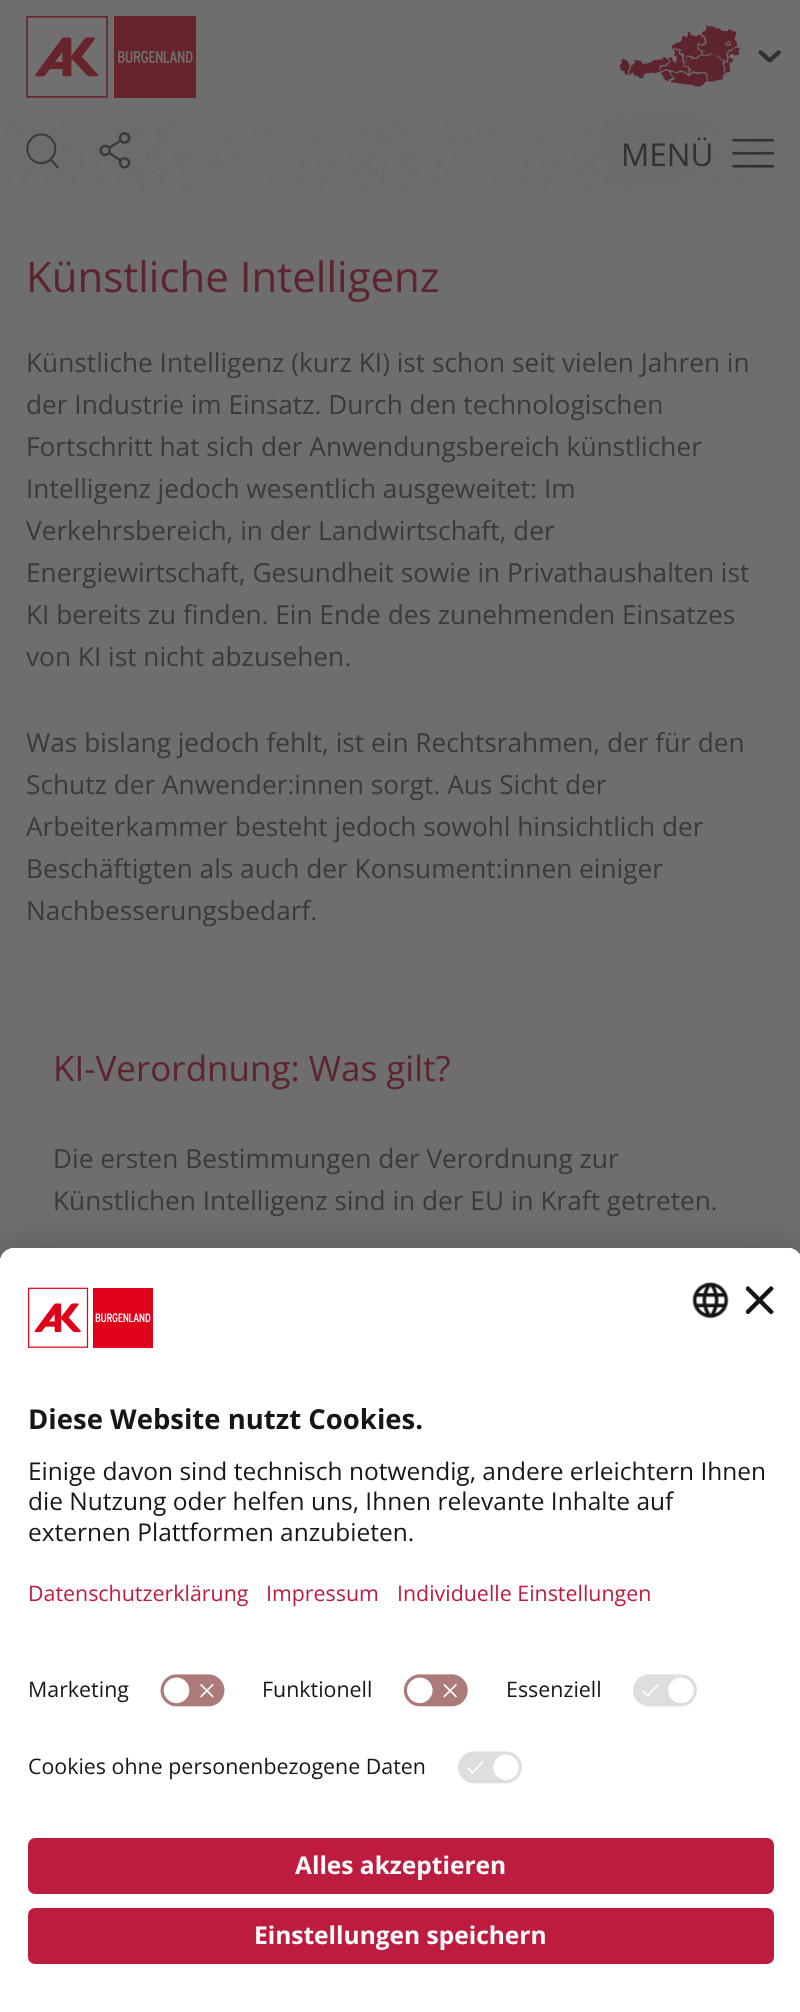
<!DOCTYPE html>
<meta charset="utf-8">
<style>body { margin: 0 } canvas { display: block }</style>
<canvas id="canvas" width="800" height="2012"></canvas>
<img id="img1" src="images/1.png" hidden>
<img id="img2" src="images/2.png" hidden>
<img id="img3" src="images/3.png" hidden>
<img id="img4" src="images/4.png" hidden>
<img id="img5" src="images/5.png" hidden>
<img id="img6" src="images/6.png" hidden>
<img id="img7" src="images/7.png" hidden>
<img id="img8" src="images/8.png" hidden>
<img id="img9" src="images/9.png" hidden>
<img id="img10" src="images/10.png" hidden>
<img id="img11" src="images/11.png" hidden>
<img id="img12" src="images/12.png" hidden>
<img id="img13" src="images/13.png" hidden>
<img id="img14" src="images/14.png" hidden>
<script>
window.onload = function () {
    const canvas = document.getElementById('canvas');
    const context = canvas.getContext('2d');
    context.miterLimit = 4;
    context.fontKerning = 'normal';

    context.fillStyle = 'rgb(110, 110, 110)';
    context.fillRect(0, 0, 800, 2012);
    context.drawImage(document.getElementById('img1'), 26, 16, 170, 82);
    context.drawImage(document.getElementById('img2'), 619, 24, 121, 64);
    context.drawImage(document.getElementById('img3'), 758, 50, 23, 13);
    context.drawImage(document.getElementById('img4'), 0, 113, 800, 78);
    context.drawImage(document.getElementById('img5'), 26, 113, 774, 78);
    context.drawImage(document.getElementById('img6'), 26, 133, 33, 36);
    context.drawImage(document.getElementById('img7'), 99, 132, 32, 37);
    context.fillStyle = 'rgb(107, 107, 107)';
    context.fillRect(606, 114, 92, 66);
    context.drawImage(document.getElementById('img8'), 732, 138, 43, 30);
    context.fillStyle = 'rgba(0, 0, 0, 0.3)';
    context.filter = 'blur(24.5px)';
    context.beginPath();
    context.roundRect(0, 1283, 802, 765, 14);
    context.fill();
    context.filter = 'none';
    context.fillStyle = 'rgba(0, 0, 0, 0.22)';
    context.filter = 'blur(23px)';
    context.beginPath();
    context.roundRect(0, 1257, 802, 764, 14);
    context.fill();
    context.filter = 'none';
    context.fillStyle = 'rgb(255, 255, 255)';
    context.beginPath();
    context.moveTo(14, 1248);
    context.lineTo(788, 1248);
    context.bezierCurveTo(795.5, 1248, 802, 1254.5, 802, 1262);
    context.lineTo(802, 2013);
    context.lineTo(0, 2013);
    context.lineTo(0, 1262);
    context.bezierCurveTo(0, 1254.5, 6.5, 1248, 14, 1248);
    context.closePath();
    context.fill();
    context.beginPath();
    context.moveTo(14, 1248);
    context.lineTo(788, 1248);
    context.bezierCurveTo(795.5, 1248, 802, 1254.5, 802, 1262);
    context.lineTo(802, 1817);
    context.lineTo(0, 1817);
    context.lineTo(0, 1262);
    context.bezierCurveTo(0, 1254.5, 6.5, 1248, 14, 1248);
    context.closePath();
    context.fill();
    context.beginPath();
    context.moveTo(14, 1248);
    context.lineTo(788, 1248);
    context.bezierCurveTo(795.5, 1248, 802, 1254.5, 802, 1262);
    context.lineTo(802, 1663);
    context.lineTo(0, 1663);
    context.lineTo(0, 1262);
    context.bezierCurveTo(0, 1254.5, 6.5, 1248, 14, 1248);
    context.closePath();
    context.fill();
    context.drawImage(document.getElementById('img9'), 28, 1287, 125, 61);
    context.drawImage(document.getElementById('img10'), 692, 1282, 37, 37);
    context.drawImage(document.getElementById('img11'), 746, 1286, 28, 28);
    context.drawImage(document.getElementById('img12'), 160, 1674, 65, 33);
    context.drawImage(document.getElementById('img13'), 403, 1674, 65, 33);
    context.drawImage(document.getElementById('img14'), 633, 1674, 64, 33);
    context.drawImage(document.getElementById('img14'), 458, 1751, 64, 33);
    context.fillStyle = 'rgb(190, 28, 62)';
    context.beginPath();
    context.roundRect(28, 1838, 746, 56, 7);
    context.fill();
    context.beginPath();
    context.roundRect(28, 1908, 746, 56, 7);
    context.fill();
    context.font = '31.5px Open Sans';
    context.fillStyle = 'rgb(48, 49, 51)';
    context.fillText('MENÜ', 621, 166);
    context.font = '42px Open Sans';
    context.fillStyle = 'rgb(93, 36, 46)';
    context.fillText('Künstliche Intelligenz', 26, 292);
    context.font = '26.25px Open Sans';
    context.fillStyle = 'rgb(57, 58, 62)';
    context.fillText('Künstliche Intelligenz (kurz KI) ist schon seit vielen Jahren in', 26, 372);
    context.fillText('der Industrie im Einsatz. Durch den technologischen', 26, 414);
    context.fillText('Fortschritt hat sich der Anwendungsbereich künstlicher', 26, 456);
    context.fillText('Intelligenz jedoch wesentlich ausgeweitet: Im', 26, 498);
    context.fillText('Verkehrsbereich, in der Landwirtschaft, der', 26, 540);
    context.fillText('Energiewirtschaft, Gesundheit sowie in Privathaushalten ist', 26, 582);
    context.fillText('KI bereits zu finden. Ein Ende des zunehmenden Einsatzes', 26, 624);
    context.fillText('von KI ist nicht abzusehen.', 26, 666);
    context.fillText('Was bislang jedoch fehlt, ist ein Rechtsrahmen, der für den', 26, 752);
    context.fillText('Schutz der Anwender:innen sorgt. Aus Sicht der', 26, 794);
    context.fillText('Arbeiterkammer besteht jedoch sowohl hinsichtlich der', 26, 836);
    context.fillText('Beschäftigten als auch der Konsument:innen einiger', 26, 878);
    context.fillText('Nachbesserungsbedarf.', 26, 920);
    context.font = '35px Open Sans';
    context.fillStyle = 'rgb(93, 36, 46)';
    context.fillText('KI-Verordnung: Was gilt?', 53, 1081);
    context.font = '26.25px Open Sans';
    context.fillStyle = 'rgb(57, 58, 62)';
    context.fillText('Die ersten Bestimmungen der Verordnung zur', 53, 1168);
    context.fillText('Künstlichen Intelligenz sind in der EU in Kraft getreten.', 53, 1210);
    context.font = 'bold 27.5px Open Sans';
    context.fillStyle = 'rgb(22, 22, 22)';
    context.fillText('Diese Website nutzt Cookies.', 28, 1429);
    context.font = '24.5px Open Sans';
    context.fillText('Einige davon sind technisch notwendig, andere erleichtern Ihnen', 28, 1480);
    context.fillText('die Nutzung oder helfen uns, Ihnen relevante Inhalte auf', 28, 1510);
    context.fillText('externen Plattformen anzubieten.', 28, 1541);
    context.font = '21.4px Open Sans';
    context.fillStyle = 'rgb(190, 28, 62)';
    context.fillText('Datenschutzerklärung', 28, 1601);
    context.fillText('Impressum', 266, 1601);
    context.fillText('Individuelle Einstellungen', 397, 1601);
    context.fillStyle = 'rgb(22, 22, 22)';
    context.fillText('Marketing', 28, 1697);
    context.fillText('Funktionell', 262, 1697);
    context.fillText('Essenziell', 506, 1697);
    context.fillText('Cookies ohne personenbezogene Daten', 28, 1774);
    context.font = 'bold 24.5px Open Sans';
    context.fillStyle = 'rgb(250, 250, 250)';
    context.fillText('Alles akzeptieren', 295, 1874);
    context.fillText('Einstellungen speichern', 254, 1944);
};
</script>
